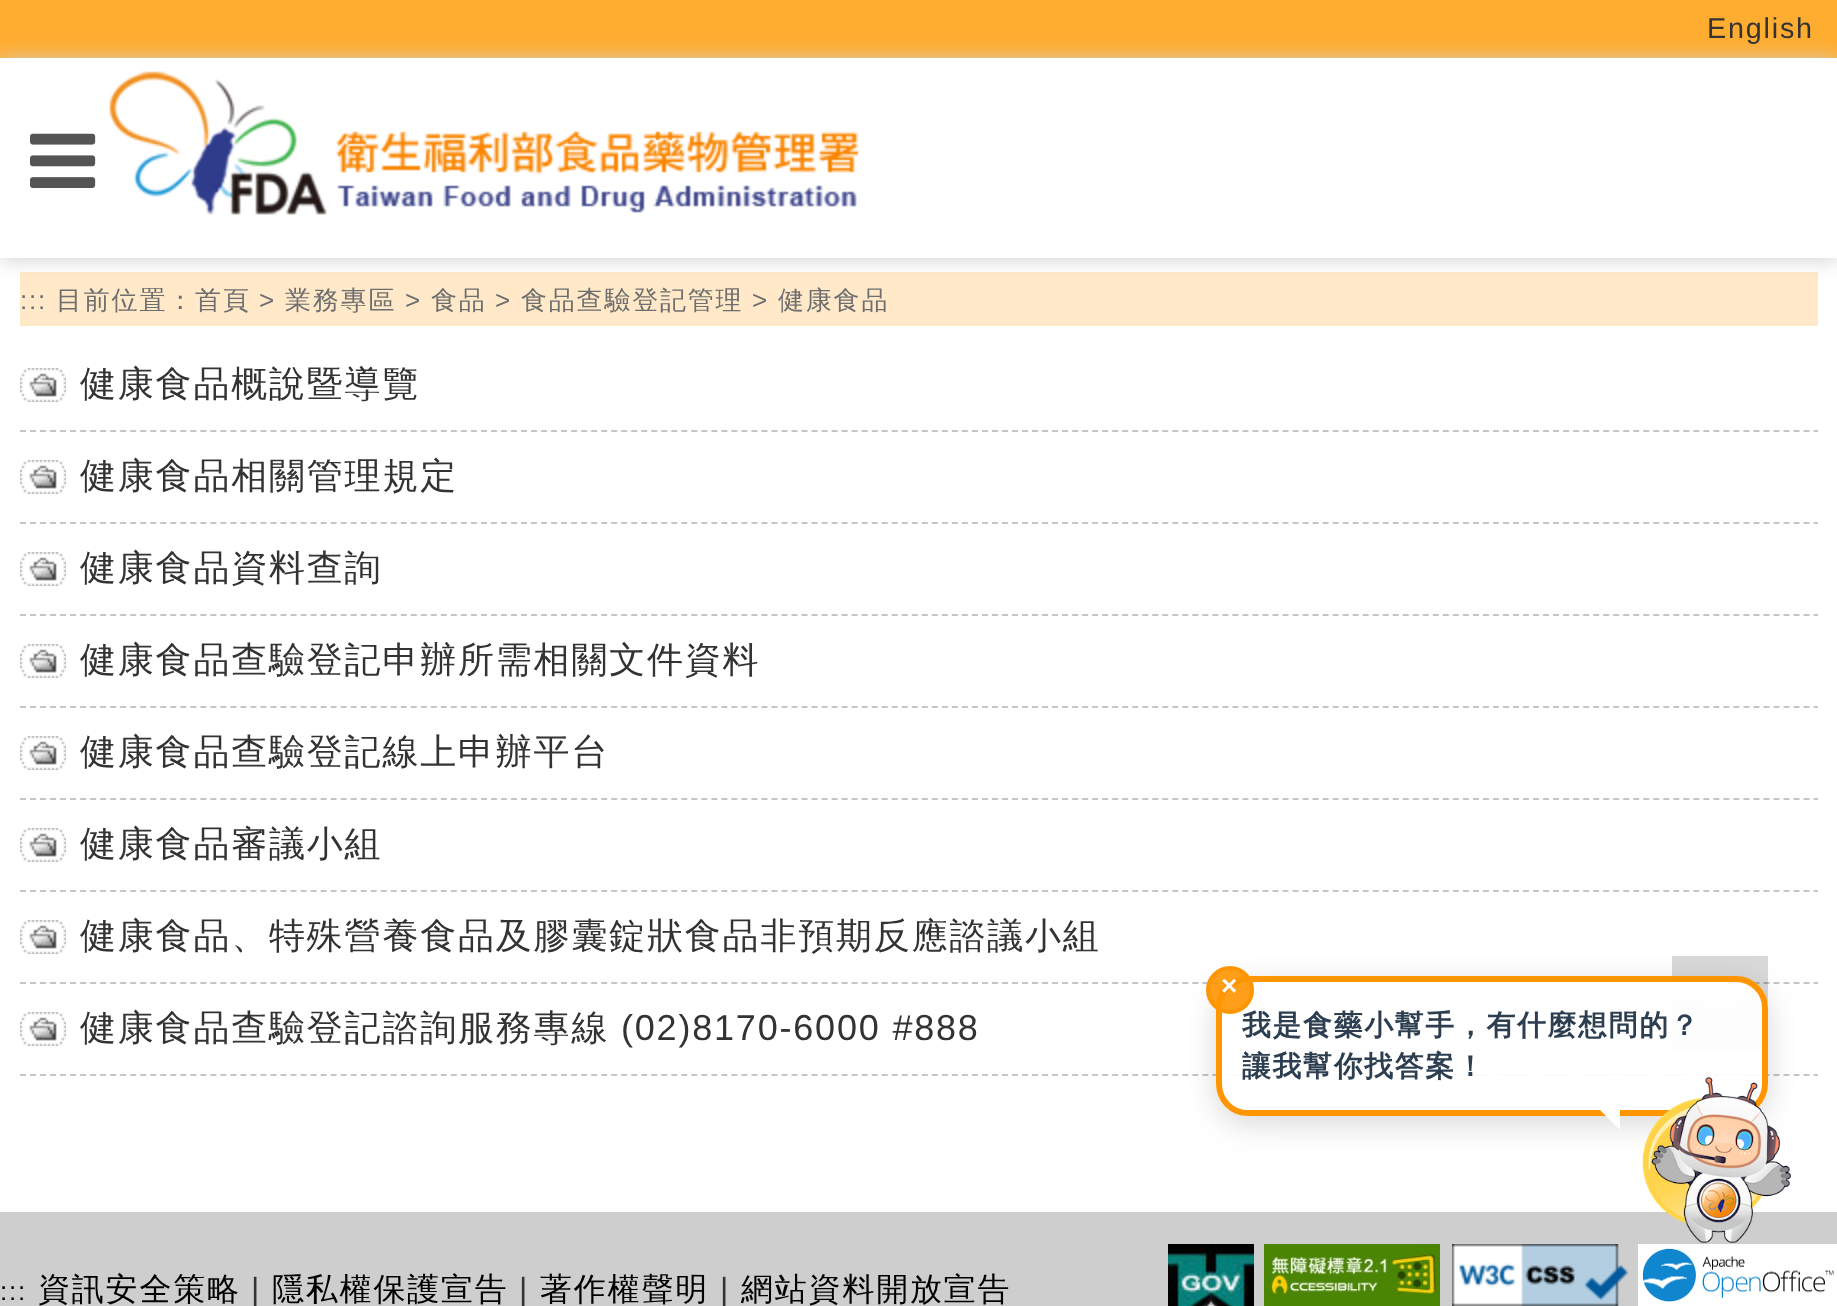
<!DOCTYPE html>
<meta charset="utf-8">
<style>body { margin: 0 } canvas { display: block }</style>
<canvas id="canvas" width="1837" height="1306"></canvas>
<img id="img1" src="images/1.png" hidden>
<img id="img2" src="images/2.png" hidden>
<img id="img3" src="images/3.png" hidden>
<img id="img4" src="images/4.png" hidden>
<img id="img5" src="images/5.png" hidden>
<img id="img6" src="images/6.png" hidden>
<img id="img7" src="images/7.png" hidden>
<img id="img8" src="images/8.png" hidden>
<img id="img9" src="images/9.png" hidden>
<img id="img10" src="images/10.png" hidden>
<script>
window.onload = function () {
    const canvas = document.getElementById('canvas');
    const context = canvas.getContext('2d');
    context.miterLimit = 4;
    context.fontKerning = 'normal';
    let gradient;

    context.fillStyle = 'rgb(255, 255, 255)';
    context.fillRect(0, 0, 1837, 1306);
    context.fillStyle = 'rgb(255, 173, 49)';
    context.fillRect(0, 0, 1837, 58);
    context.fillStyle = 'rgb(255, 233, 200)';
    context.fillRect(20, 272, 1798, 54);
    context.fillStyle = 'rgb(210, 210, 210)';
    context.filter = 'blur(10px)';
    context.beginPath();
    context.rect(0, 60, 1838, 200);
    context.fill();
    context.filter = 'none';
    context.fillStyle = 'rgb(255, 255, 255)';
    context.fillRect(0, 58, 1837, 200);
    context.drawImage(document.getElementById('img1'), 109, 71, 218, 144);
    context.drawImage(document.getElementById('img2'), 335, 130, 524, 83);
    context.drawImage(document.getElementById('img3'), 30, 133, 66, 55);
    context.drawImage(document.getElementById('img4'), 20, 368, 46, 34);
    context.beginPath();
    context.moveTo(20, 431);
    context.lineTo(1818, 431);
    context.strokeStyle = 'rgb(197, 197, 197)';
    context.lineWidth = 2;
    context.setLineDash([6, 4.02]);
    context.stroke();
    context.drawImage(document.getElementById('img4'), 20, 460, 46, 34);
    context.beginPath();
    context.moveTo(20, 523);
    context.lineTo(1818, 523);
    context.stroke();
    context.drawImage(document.getElementById('img4'), 20, 552, 46, 34);
    context.beginPath();
    context.moveTo(20, 615);
    context.lineTo(1818, 615);
    context.stroke();
    context.drawImage(document.getElementById('img4'), 20, 644, 46, 34);
    context.beginPath();
    context.moveTo(20, 707);
    context.lineTo(1818, 707);
    context.stroke();
    context.drawImage(document.getElementById('img4'), 20, 736, 46, 34);
    context.beginPath();
    context.moveTo(20, 799);
    context.lineTo(1818, 799);
    context.stroke();
    context.drawImage(document.getElementById('img4'), 20, 828, 46, 34);
    context.beginPath();
    context.moveTo(20, 891);
    context.lineTo(1818, 891);
    context.stroke();
    context.drawImage(document.getElementById('img4'), 20, 920, 46, 34);
    context.beginPath();
    context.moveTo(20, 983);
    context.lineTo(1818, 983);
    context.stroke();
    context.drawImage(document.getElementById('img4'), 20, 1012, 46, 34);
    context.beginPath();
    context.moveTo(20, 1075);
    context.lineTo(1818, 1075);
    context.stroke();
    context.fillStyle = 'rgba(0, 0, 0, 0.15)';
    context.fillRect(1672, 956, 96, 94);
    context.drawImage(document.getElementById('img5'), 1704, 988, 32, 24);
    context.fillStyle = 'rgb(206, 206, 206)';
    context.fillRect(0, 1212, 1837, 94);
    context.drawImage(document.getElementById('img6'), 1168, 1244, 86, 62);
    context.drawImage(document.getElementById('img7'), 1264, 1244, 176, 62);
    context.drawImage(document.getElementById('img8'), 1452, 1244, 176, 62);
    context.drawImage(document.getElementById('img9'), 1638, 1244, 199, 62);
    context.save();
    context.beginPath();
    context.moveTo(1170, 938);
    context.lineTo(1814, 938);
    context.lineTo(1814, 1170);
    context.lineTo(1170, 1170);
    context.closePath();
    context.moveTo(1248, 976);
    context.lineTo(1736, 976);
    context.bezierCurveTo(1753.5, 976, 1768, 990.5, 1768, 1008);
    context.lineTo(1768, 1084);
    context.bezierCurveTo(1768, 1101.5, 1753.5, 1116, 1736, 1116);
    context.lineTo(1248, 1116);
    context.bezierCurveTo(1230.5, 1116, 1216, 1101.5, 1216, 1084);
    context.lineTo(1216, 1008);
    context.bezierCurveTo(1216, 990.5, 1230.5, 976, 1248, 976);
    context.closePath();
    context.clip('evenodd');
    context.fillStyle = 'rgba(0, 0, 0, 0.15)';
    context.filter = 'blur(15px)';
    context.beginPath();
    context.roundRect(1216, 984, 552, 140, 32);
    context.fill();
    context.filter = 'none';
    context.restore();
    context.save();
    context.beginPath();
    context.roundRect(1216, 976, 552, 140, 32);
    context.clip();
    gradient = context.createLinearGradient(1492, 982, 1492, 1110);
    gradient.addColorStop(0, 'rgba(255, 255, 255, 0.98)');
    gradient.addColorStop(1, 'rgba(255, 255, 255, 0.9)');
    context.fillStyle = gradient;
    context.fillRect(1216, 982, 552, 128);
    context.restore();
    context.beginPath();
    context.roundRect(1219, 979, 546, 134, 29);
    context.strokeStyle = 'rgb(255, 149, 0)';
    context.lineWidth = 6;
    context.setLineDash([]);
    context.stroke();
    context.fillStyle = 'rgb(255, 255, 255)';
    context.beginPath();
    context.moveTo(1600, 1110);
    context.lineTo(1620, 1110);
    context.lineTo(1620, 1130);
    context.closePath();
    context.fill();
    context.drawImage(document.getElementById('img10'), 1642, 1077, 149, 167);
    context.letterSpacing = '1.8px';
    context.font = '28.75px Liberation Sans';
    context.fillStyle = 'rgb(51, 51, 51)';
    context.fillText('English', 1707, 38);
    context.font = '26px Liberation Sans';
    context.fillStyle = 'rgb(110, 110, 110)';
    context.fillText(':::', 20, 309);
    context.font = '500 26px WenQuanYi Zen Hei';
    context.fillText('目前位置：首頁', 56, 309);
    context.font = '26px Liberation Sans';
    context.fillText('>', 259, 309);
    context.font = '500 26px WenQuanYi Zen Hei';
    context.fillText('業務專區', 285, 309);
    context.font = '26px Liberation Sans';
    context.fillText('>', 405, 309);
    context.font = '500 26px WenQuanYi Zen Hei';
    context.fillText('食品', 431, 309);
    context.font = '26px Liberation Sans';
    context.fillText('>', 495, 309);
    context.font = '500 26px WenQuanYi Zen Hei';
    context.fillText('食品查驗登記管理', 521, 309);
    context.font = '26px Liberation Sans';
    context.fillText('>', 752, 309);
    context.font = '500 26px WenQuanYi Zen Hei';
    context.fillText('健康食品', 778, 309);
    context.font = '500 36px WenQuanYi Zen Hei';
    context.fillStyle = 'rgb(51, 51, 51)';
    context.fillText('健康食品概說暨導覽', 80, 396);
    context.fillText('健康食品相關管理規定', 80, 488);
    context.fillText('健康食品資料查詢', 80, 580);
    context.fillText('健康食品查驗登記申辦所需相關文件資料', 80, 672);
    context.fillText('健康食品查驗登記線上申辦平台', 80, 764);
    context.fillText('健康食品審議小組', 80, 856);
    context.fillText('健康食品、特殊營養食品及膠囊錠狀食品非預期反應諮議小組', 80, 948);
    context.fillText('健康食品查驗登記諮詢服務專線', 80, 1040);
    context.font = '36px Liberation Sans';
    context.fillText('(02)8170-6000 #888', 621, 1040);
    context.font = '26px Liberation Sans';
    context.fillStyle = 'rgb(0, 0, 0)';
    context.fillText(':::', 0, 1300);
    context.font = '500 32px WenQuanYi Zen Hei';
    context.fillText('資訊安全策略', 38, 1300);
    context.font = '32px Liberation Sans';
    context.fillStyle = 'rgb(51, 51, 51)';
    context.fillText('|', 251, 1300);
    context.font = '500 32px WenQuanYi Zen Hei';
    context.fillStyle = 'rgb(0, 0, 0)';
    context.fillText('隱私權保護宣告', 272, 1300);
    context.font = '32px Liberation Sans';
    context.fillStyle = 'rgb(51, 51, 51)';
    context.fillText('|', 519, 1300);
    context.font = '500 32px WenQuanYi Zen Hei';
    context.fillStyle = 'rgb(0, 0, 0)';
    context.fillText('著作權聲明', 540, 1300);
    context.font = '32px Liberation Sans';
    context.fillStyle = 'rgb(51, 51, 51)';
    context.fillText('|', 720, 1300);
    context.font = '500 32px WenQuanYi Zen Hei';
    context.fillStyle = 'rgb(0, 0, 0)';
    context.fillText('網站資料開放宣告', 741, 1300);
    context.font = 'bold 28.75px WenQuanYi Zen Hei';
    context.fillStyle = 'rgb(44, 62, 80)';
    context.fillText('我是食藥小幫手，有什麼想問的？', 1242, 1035);
    context.fillStyle = 'rgba(255, 149, 0, 0.9)';
    context.beginPath();
    context.arc(1230, 990, 22, 0, 2 * Math.PI);
    context.fill();
    context.lineWidth = 4;
    context.stroke();
    context.font = 'bold 28px Liberation Sans';
    context.fillStyle = 'rgb(255, 255, 255)';
    context.fillText('×', 1221, 995);
    context.font = 'bold 28.75px WenQuanYi Zen Hei';
    context.fillStyle = 'rgb(44, 62, 80)';
    context.fillText('讓我幫你找答案！', 1242, 1076);
};
</script>
